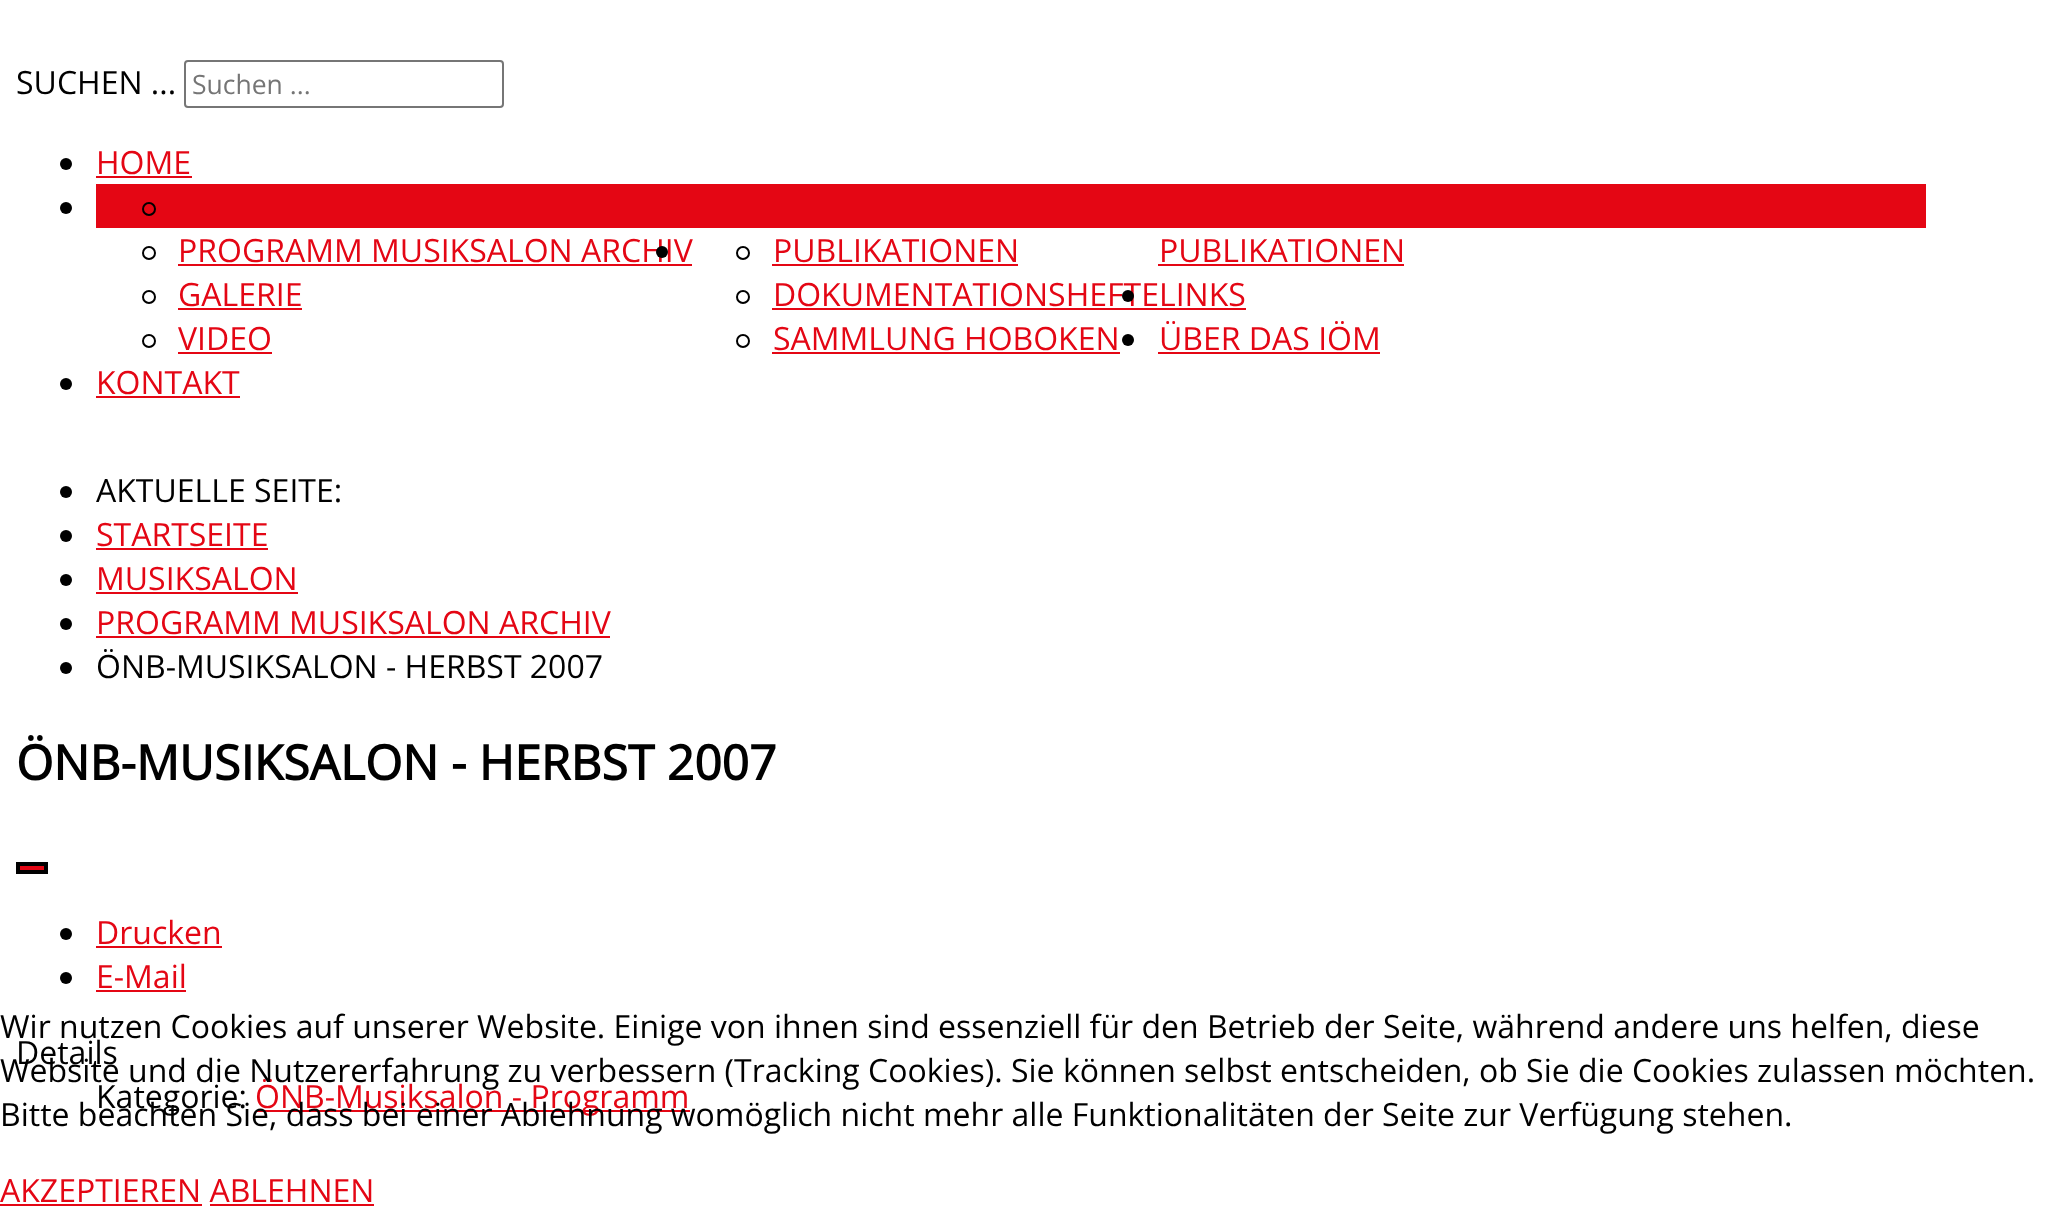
<!DOCTYPE html>
<meta charset="utf-8">
<style>body { margin: 0 } canvas { display: block }</style>
<canvas id="canvas" width="2060" height="1211"></canvas>
<script>
window.onload = function () {
    const canvas = document.getElementById('canvas');
    const context = canvas.getContext('2d');
    context.miterLimit = 4;
    context.fontKerning = 'normal';

    context.fillStyle = 'rgb(255, 255, 255)';
    context.fillRect(0, 0, 2060, 1211);
    context.beginPath();
    context.roundRect(185, 61, 318, 46, 3);
    context.strokeStyle = 'rgb(118, 118, 118)';
    context.lineWidth = 2;
    context.stroke();
    context.fillStyle = 'rgb(0, 0, 0)';
    context.beginPath();
    context.arc(66, 164, 6, 0, 2 * Math.PI);
    context.fill();
    context.fillStyle = 'rgb(228, 6, 20)';
    context.fillRect(96, 176, 96, 2);
    context.fillRect(96, 184, 1830, 44);
    context.fillStyle = 'rgb(0, 0, 0)';
    context.beginPath();
    context.arc(66, 208, 6, 0, 2 * Math.PI);
    context.fill();
    context.beginPath();
    context.arc(149, 209, 6, 0, 2 * Math.PI);
    context.strokeStyle = 'rgb(0, 0, 0)';
    context.stroke();
    context.beginPath();
    context.arc(149, 253, 6, 0, 2 * Math.PI);
    context.stroke();
    context.fillStyle = 'rgb(228, 6, 20)';
    context.fillRect(178, 264, 514, 2);
    context.beginPath();
    context.arc(149, 297, 6, 0, 2 * Math.PI);
    context.stroke();
    context.fillRect(178, 308, 124, 2);
    context.beginPath();
    context.arc(149, 341, 6, 0, 2 * Math.PI);
    context.stroke();
    context.fillRect(178, 352, 94, 2);
    context.beginPath();
    context.arc(743, 253, 6, 0, 2 * Math.PI);
    context.stroke();
    context.fillRect(772, 264, 246, 2);
    context.beginPath();
    context.arc(743, 297, 6, 0, 2 * Math.PI);
    context.stroke();
    context.fillRect(772, 308, 474, 2);
    context.beginPath();
    context.arc(743, 341, 6, 0, 2 * Math.PI);
    context.stroke();
    context.fillRect(772, 352, 348, 2);
    context.fillRect(1158, 264, 246, 2);
    context.fillStyle = 'rgb(0, 0, 0)';
    context.beginPath();
    context.arc(1128, 340, 6, 0, 2 * Math.PI);
    context.fill();
    context.fillStyle = 'rgb(228, 6, 20)';
    context.fillRect(1158, 352, 222, 2);
    context.fillStyle = 'rgb(0, 0, 0)';
    context.beginPath();
    context.arc(66, 384, 6, 0, 2 * Math.PI);
    context.fill();
    context.fillStyle = 'rgb(228, 6, 20)';
    context.fillRect(96, 396, 144, 2);
    context.fillStyle = 'rgb(0, 0, 0)';
    context.beginPath();
    context.arc(66, 492, 6, 0, 2 * Math.PI);
    context.fill();
    context.beginPath();
    context.arc(66, 536, 6, 0, 2 * Math.PI);
    context.fill();
    context.fillStyle = 'rgb(228, 6, 20)';
    context.fillRect(96, 548, 172, 2);
    context.fillStyle = 'rgb(0, 0, 0)';
    context.beginPath();
    context.arc(66, 580, 6, 0, 2 * Math.PI);
    context.fill();
    context.fillStyle = 'rgb(228, 6, 20)';
    context.fillRect(96, 592, 202, 2);
    context.fillStyle = 'rgb(0, 0, 0)';
    context.beginPath();
    context.arc(66, 624, 6, 0, 2 * Math.PI);
    context.fill();
    context.fillStyle = 'rgb(228, 6, 20)';
    context.fillRect(96, 636, 514, 2);
    context.fillStyle = 'rgb(0, 0, 0)';
    context.beginPath();
    context.arc(66, 668, 6, 0, 2 * Math.PI);
    context.fill();
    context.fillStyle = 'rgb(228, 6, 20)';
    context.beginPath();
    context.rect(18, 864, 28, 8);
    context.fill();
    context.lineWidth = 4;
    context.stroke();
    context.fillStyle = 'rgb(0, 0, 0)';
    context.beginPath();
    context.arc(66, 934, 6, 0, 2 * Math.PI);
    context.fill();
    context.fillStyle = 'rgb(228, 6, 20)';
    context.fillRect(96, 946, 126, 2);
    context.fillStyle = 'rgb(0, 0, 0)';
    context.beginPath();
    context.arc(66, 978, 6, 0, 2 * Math.PI);
    context.fill();
    context.fillStyle = 'rgb(228, 6, 20)';
    context.fillRect(96, 990, 90, 2);
    context.fillRect(256, 1110, 434, 2);
    context.fillRect(0, 1204, 202, 2);
    context.fillRect(210, 1204, 164, 2);
    context.font = '32px Open Sans';
    context.fillStyle = 'rgb(0, 0, 0)';
    context.fillText('SUCHEN ...', 16, 94);
    context.font = '26.5px Open Sans';
    context.fillStyle = 'rgb(117, 117, 117)';
    context.fillText('Suchen ...', 192, 94);
    context.font = '32px Open Sans';
    context.fillStyle = 'rgb(228, 6, 20)';
    context.fillText('HOME', 96, 174);
    context.fillText('PROGRAMM MUSIKSALON ARCHIV', 178, 262);
    context.fillText('GALERIE', 178, 306);
    context.fillText('VIDEO', 178, 350);
    context.fillStyle = 'rgb(0, 0, 0)';
    context.beginPath();
    context.arc(662, 252, 6, 0, 2 * Math.PI);
    context.fill();
    context.fillStyle = 'rgb(228, 6, 20)';
    context.fillText('PUBLIKATIONEN', 773, 262);
    context.fillText('DOKUMENTATIONSHEFTELINKS', 773, 306);
    context.fillText('SAMMLUNG HOBOKEN', 773, 350);
    context.fillText('PUBLIKATIONEN', 1159, 262);
    context.fillStyle = 'rgb(0, 0, 0)';
    context.beginPath();
    context.arc(1128, 296, 6, 0, 2 * Math.PI);
    context.fill();
    context.fillStyle = 'rgb(228, 6, 20)';
    context.fillText('ÜBER DAS IÖM', 1159, 350);
    context.fillText('KONTAKT', 96, 394);
    context.fillStyle = 'rgb(0, 0, 0)';
    context.fillText('AKTUELLE SEITE:', 96, 502);
    context.fillStyle = 'rgb(228, 6, 20)';
    context.fillText('STARTSEITE', 96, 546);
    context.fillText('MUSIKSALON', 96, 590);
    context.fillText('PROGRAMM MUSIKSALON ARCHIV', 96, 634);
    context.fillStyle = 'rgb(0, 0, 0)';
    context.fillText('ÖNB-MUSIKSALON - HERBST 2007', 96, 678);
    context.font = 'bold 48px Open Sans';
    context.fillText('ÖNB-MUSIKSALON - HERBST 2007', 16, 780);
    context.font = '32px Open Sans';
    context.fillStyle = 'rgb(228, 6, 20)';
    context.fillText('Drucken', 96, 944);
    context.fillText('E-Mail', 96, 988);
    context.fillStyle = 'rgb(0, 0, 0)';
    context.fillText('Details', 16, 1064);
    context.fillText('Kategorie:', 96, 1108);
    context.fillStyle = 'rgb(228, 6, 20)';
    context.fillText('ÖNB-Musiksalon - Programm', 255, 1108);
    context.fillStyle = 'rgb(0, 0, 0)';
    context.fillText('Wir nutzen Cookies auf unserer Website. Einige von ihnen sind essenziell für den Betrieb der Seite, während andere uns helfen, diese', 0, 1038);
    context.fillText('Website und die Nutzererfahrung zu verbessern (Tracking Cookies). Sie können selbst entscheiden, ob Sie die Cookies zulassen möchten.', 0, 1082);
    context.fillText('Bitte beachten Sie, dass bei einer Ablehnung womöglich nicht mehr alle Funktionalitäten der Seite zur Verfügung stehen.', 0, 1126);
    context.fillStyle = 'rgb(228, 6, 20)';
    context.fillText('AKZEPTIEREN ABLEHNEN', 0, 1202);
};
</script>
